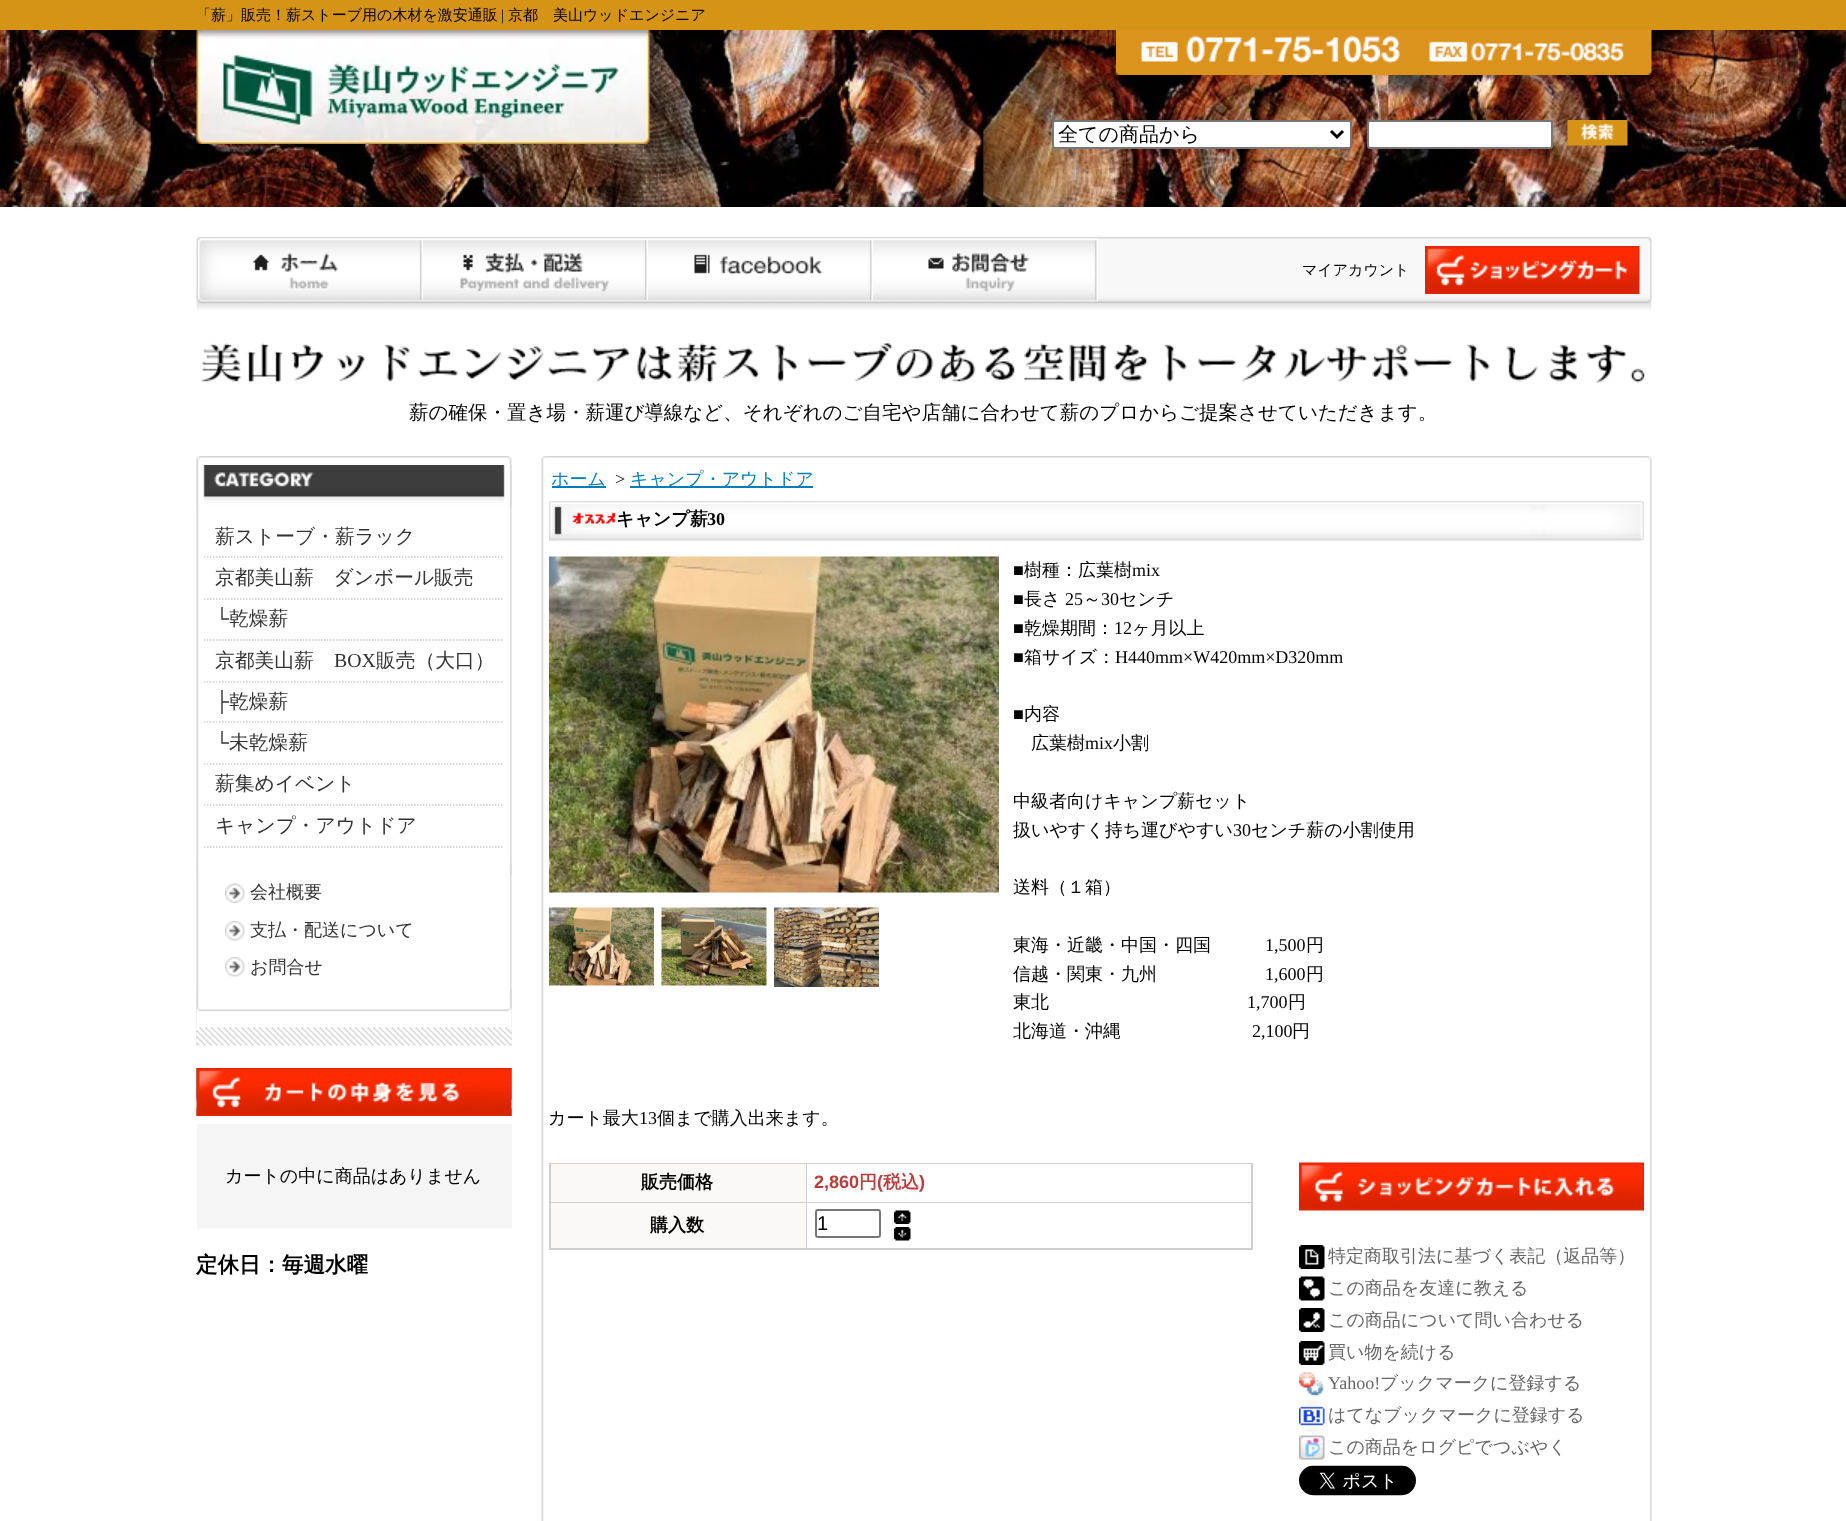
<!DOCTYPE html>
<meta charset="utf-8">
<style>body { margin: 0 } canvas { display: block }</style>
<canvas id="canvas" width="1846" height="1521"></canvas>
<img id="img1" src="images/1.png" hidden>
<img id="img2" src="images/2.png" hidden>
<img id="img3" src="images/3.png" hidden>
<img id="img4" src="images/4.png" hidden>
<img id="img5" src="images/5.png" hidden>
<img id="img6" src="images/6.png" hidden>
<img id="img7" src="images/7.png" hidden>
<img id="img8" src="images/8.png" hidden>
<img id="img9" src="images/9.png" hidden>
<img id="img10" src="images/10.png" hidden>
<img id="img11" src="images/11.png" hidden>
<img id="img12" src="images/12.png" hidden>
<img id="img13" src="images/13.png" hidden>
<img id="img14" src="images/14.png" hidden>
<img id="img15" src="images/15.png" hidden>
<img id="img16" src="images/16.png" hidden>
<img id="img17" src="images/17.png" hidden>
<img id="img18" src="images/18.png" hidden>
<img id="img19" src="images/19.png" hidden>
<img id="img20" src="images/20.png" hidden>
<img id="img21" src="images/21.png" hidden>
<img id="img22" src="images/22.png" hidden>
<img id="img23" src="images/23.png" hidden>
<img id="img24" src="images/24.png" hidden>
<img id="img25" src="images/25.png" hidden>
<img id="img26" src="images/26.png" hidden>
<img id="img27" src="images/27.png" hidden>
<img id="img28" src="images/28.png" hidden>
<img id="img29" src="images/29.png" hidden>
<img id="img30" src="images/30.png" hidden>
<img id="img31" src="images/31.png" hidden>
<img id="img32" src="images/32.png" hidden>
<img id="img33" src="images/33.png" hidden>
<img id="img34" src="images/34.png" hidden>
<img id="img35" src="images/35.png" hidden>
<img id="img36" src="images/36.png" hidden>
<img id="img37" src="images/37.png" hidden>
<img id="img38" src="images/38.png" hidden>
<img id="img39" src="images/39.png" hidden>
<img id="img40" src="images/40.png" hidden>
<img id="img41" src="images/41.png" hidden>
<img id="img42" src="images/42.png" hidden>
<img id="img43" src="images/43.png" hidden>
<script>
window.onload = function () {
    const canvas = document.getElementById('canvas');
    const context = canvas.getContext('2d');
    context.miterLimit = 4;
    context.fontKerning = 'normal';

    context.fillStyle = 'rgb(255, 255, 255)';
    context.fillRect(0, 0, 1846, 1521);
    context.drawImage(document.getElementById('img1'), 0, 30, 1846, 177);
    context.fillStyle = 'rgb(214, 148, 22)';
    context.fillRect(0, 0, 1846, 30);
    context.drawImage(document.getElementById('img2'), 196, 236, 1456, 74);
    context.drawImage(document.getElementById('img3'), 196, 30, 454, 114);
    context.drawImage(document.getElementById('img4'), 1116, 30, 536, 45);
    context.fillStyle = 'rgb(255, 255, 255)';
    context.beginPath();
    context.roundRect(1053, 121, 298, 27, 2);
    context.fill();
    context.strokeStyle = 'rgb(118, 118, 118)';
    context.lineWidth = 2;
    context.stroke();
    context.beginPath();
    context.moveTo(1331, 131);
    context.lineTo(1337, 137);
    context.lineTo(1343, 131);
    context.strokeStyle = 'rgb(0, 0, 0)';
    context.lineWidth = 3;
    context.stroke();
    context.beginPath();
    context.roundRect(1368, 121, 184, 27, 2);
    context.fill();
    context.strokeStyle = 'rgb(118, 118, 118)';
    context.lineWidth = 2;
    context.stroke();
    context.drawImage(document.getElementById('img5'), 1567, 120, 61, 26);
    context.drawImage(document.getElementById('img6'), 198, 238, 225, 64);
    context.drawImage(document.getElementById('img7'), 423, 238, 225, 64);
    context.drawImage(document.getElementById('img8'), 648, 238, 225, 64);
    context.drawImage(document.getElementById('img9'), 873, 238, 225, 64);
    context.drawImage(document.getElementById('img10'), 1425, 246, 215, 48);
    context.drawImage(document.getElementById('img11'), 201, 343, 1444, 40);
    context.drawImage(document.getElementById('img12'), 196, 456, 1456, 9);
    context.drawImage(document.getElementById('img13'), 196, 465, 316, 398);
    context.drawImage(document.getElementById('img14'), 196, 465, 316, 41);
    context.beginPath();
    context.moveTo(204, 557);
    context.lineTo(504, 557);
    context.strokeStyle = 'rgb(204, 204, 204)';
    context.lineWidth = 1.5;
    context.setLineDash([1.5, 1.5]);
    context.stroke();
    context.beginPath();
    context.moveTo(204, 599);
    context.lineTo(504, 599);
    context.stroke();
    context.beginPath();
    context.moveTo(204, 640);
    context.lineTo(504, 640);
    context.stroke();
    context.beginPath();
    context.moveTo(204, 682);
    context.lineTo(504, 682);
    context.stroke();
    context.beginPath();
    context.moveTo(204, 722);
    context.lineTo(504, 722);
    context.stroke();
    context.beginPath();
    context.moveTo(204, 764);
    context.lineTo(504, 764);
    context.stroke();
    context.beginPath();
    context.moveTo(204, 805);
    context.lineTo(504, 805);
    context.stroke();
    context.beginPath();
    context.moveTo(204, 847);
    context.lineTo(504, 847);
    context.stroke();
    context.drawImage(document.getElementById('img15'), 196, 862, 316, 184);
    context.drawImage(document.getElementById('img16'), 196, 862, 316, 13);
    context.drawImage(document.getElementById('img17'), 196, 990, 316, 56);
    context.drawImage(document.getElementById('img18'), 225, 883, 20, 20);
    context.drawImage(document.getElementById('img19'), 225, 921, 20, 20);
    context.drawImage(document.getElementById('img19'), 225, 957, 20, 20);
    context.drawImage(document.getElementById('img20'), 196, 1068, 316, 48);
    context.drawImage(document.getElementById('img21'), 196, 1068, 316, 48);
    context.fillStyle = 'rgb(245, 245, 245)';
    context.fillRect(197, 1124, 315, 105);
    context.drawImage(document.getElementById('img22'), 541, 465, 1111, 1056);
    context.fillStyle = 'rgb(0, 124, 182)';
    context.fillRect(552, 486, 54, 2);
    context.fillRect(630, 486, 183, 2);
    context.drawImage(document.getElementById('img23'), 549, 501, 1095, 41);
    context.drawImage(document.getElementById('img24'), 572, 512, 44, 12);
    context.drawImage(document.getElementById('img25'), 549, 556, 450, 337);
    context.drawImage(document.getElementById('img26'), 549, 907, 105, 79);
    context.drawImage(document.getElementById('img27'), 661, 916, 1, 12);
    context.drawImage(document.getElementById('img28'), 661, 907, 106, 79);
    context.drawImage(document.getElementById('img29'), 774, 907, 105, 80);
    context.fillStyle = 'rgb(207, 207, 207)';
    context.fillRect(549, 1163, 704, 1);
    context.fillRect(549, 1163, 2, 87);
    context.fillStyle = 'rgb(251, 249, 246)';
    context.fillRect(551, 1164, 255, 38);
    context.fillStyle = 'rgb(207, 207, 207)';
    context.fillRect(806, 1164, 1, 86);
    context.fillRect(551, 1202, 256, 1);
    context.fillRect(1251, 1164, 2, 86);
    context.fillRect(807, 1202, 446, 1);
    context.fillStyle = 'rgb(251, 249, 246)';
    context.fillRect(551, 1203, 255, 45);
    context.fillStyle = 'rgb(207, 207, 207)';
    context.fillRect(551, 1248, 702, 2);
    context.beginPath();
    context.roundRect(816, 1210, 64, 27, 2);
    context.strokeStyle = 'rgb(118, 118, 118)';
    context.lineWidth = 2;
    context.setLineDash([]);
    context.stroke();
    context.drawImage(document.getElementById('img30'), 892, 1213, 18, 13);
    context.strokeStyle = 'rgb(255, 255, 255)';
    context.strokeRect(894, 1210, 17, 15);
    context.drawImage(document.getElementById('img31'), 894, 1210, 17, 14);
    context.drawImage(document.getElementById('img32'), 892, 1229, 18, 13);
    context.strokeRect(894, 1227, 17, 14);
    context.drawImage(document.getElementById('img33'), 894, 1227, 17, 14);
    context.drawImage(document.getElementById('img34'), 1299, 1162, 345, 49);
    context.drawImage(document.getElementById('img35'), 1299, 1245, 26, 24);
    context.drawImage(document.getElementById('img36'), 1299, 1276, 26, 25);
    context.drawImage(document.getElementById('img37'), 1299, 1308, 26, 24);
    context.drawImage(document.getElementById('img38'), 1299, 1341, 26, 24);
    context.drawImage(document.getElementById('img39'), 1299, 1372, 25, 24);
    context.drawImage(document.getElementById('img40'), 1299, 1406, 26, 20);
    context.drawImage(document.getElementById('img41'), 1299, 1435, 26, 25);
    context.drawImage(document.getElementById('img42'), 1299, 1468, 7, 16);
    context.drawImage(document.getElementById('img43'), 1299, 1465, 117, 31);
    context.font = '500 15px WenQuanYi Zen Hei';
    context.fillStyle = 'rgb(0, 0, 0)';
    context.fillText('「薪」販売！薪ストーブ用の木材を激安通販', 196, 20);
    context.font = '15px Liberation Serif';
    context.fillText('|', 501, 20);
    context.font = '500 15px WenQuanYi Zen Hei';
    context.fillText('京都　美山ウッドエンジニア', 508, 20);
    context.font = '500 20px WenQuanYi Zen Hei';
    context.fillText('全ての商品から', 1058, 141);
    context.font = '500 15px WenQuanYi Zen Hei';
    context.fillText('マイアカウント', 1302, 275);
    context.font = '500 19.5px WenQuanYi Zen Hei';
    context.fillText('薪の確保・置き場・薪運び導線など、それぞれのご自宅や店舗に合わせて薪のプロからご提案させていただきます。', 409, 419);
    context.font = '500 19.75px WenQuanYi Zen Hei';
    context.fillStyle = 'rgb(51, 51, 51)';
    context.fillText('薪ストーブ・薪ラック', 215, 543);
    context.fillText('京都美山薪　ダンボール販売', 215, 584);
    context.font = '19.75px Liberation Serif';
    context.fillText('└', 215, 625);
    context.font = '500 19.75px WenQuanYi Zen Hei';
    context.fillText('乾燥薪', 229, 625);
    context.fillText('京都美山薪', 215, 667);
    context.font = '19.75px Liberation Serif';
    context.fillText('BOX', 334, 667);
    context.font = '500 19.75px WenQuanYi Zen Hei';
    context.fillText('販売（大口）', 376, 667);
    context.font = '19.75px Liberation Serif';
    context.fillText('├', 215, 708);
    context.font = '500 19.75px WenQuanYi Zen Hei';
    context.fillText('乾燥薪', 229, 708);
    context.font = '19.75px Liberation Serif';
    context.fillText('└', 215, 749);
    context.font = '500 19.75px WenQuanYi Zen Hei';
    context.fillText('未乾燥薪', 229, 749);
    context.fillText('薪集めイベント', 215, 790);
    context.fillText('キャンプ・アウトドア', 215, 832);
    context.font = '500 18px WenQuanYi Zen Hei';
    context.fillText('会社概要', 250, 898);
    context.fillText('支払・配送について', 250, 936);
    context.fillText('お問合せ', 250, 973);
    context.fillStyle = 'rgb(0, 0, 0)';
    context.fillText('カートの中に商品はありません', 225, 1182);
    context.font = 'bold 21.5px WenQuanYi Zen Hei';
    context.fillText('定休日：毎週水曜', 196, 1272);
    context.font = '500 18px WenQuanYi Zen Hei';
    context.fillStyle = 'rgb(0, 124, 182)';
    context.fillText('ホーム', 551, 485);
    context.font = '18px Liberation Serif';
    context.fillStyle = 'rgb(0, 0, 0)';
    context.fillText('>', 615, 485);
    context.font = '500 18px WenQuanYi Zen Hei';
    context.fillStyle = 'rgb(0, 124, 182)';
    context.fillText('キャンプ・アウトドア', 630, 485);
    context.font = 'bold 18px WenQuanYi Zen Hei';
    context.fillStyle = 'rgb(0, 0, 0)';
    context.fillText('キャンプ薪', 616, 525);
    context.font = 'bold 18px Liberation Serif';
    context.fillText('30', 707, 525);
    context.font = '18px Liberation Serif';
    context.fillText('■', 1013, 576);
    context.font = '500 18px WenQuanYi Zen Hei';
    context.fillText('樹種：広葉樹', 1024, 576);
    context.font = '18px Liberation Serif';
    context.fillText('mix', 1132, 576);
    context.fillText('■', 1013, 605);
    context.font = '500 18px WenQuanYi Zen Hei';
    context.fillText('長さ', 1024, 605);
    context.font = '18px Liberation Serif';
    context.fillText('25', 1065, 605);
    context.font = '500 18px WenQuanYi Zen Hei';
    context.fillText('～', 1083, 605);
    context.font = '18px Liberation Serif';
    context.fillText('30', 1101, 605);
    context.font = '500 18px WenQuanYi Zen Hei';
    context.fillText('センチ', 1119, 605);
    context.font = '18px Liberation Serif';
    context.fillText('■', 1013, 634);
    context.font = '500 18px WenQuanYi Zen Hei';
    context.fillText('乾燥期間：', 1024, 634);
    context.font = '18px Liberation Serif';
    context.fillText('12', 1114, 634);
    context.font = '500 18px WenQuanYi Zen Hei';
    context.fillText('ヶ月以上', 1132, 634);
    context.font = '18px Liberation Serif';
    context.fillText('■', 1013, 663);
    context.font = '500 18px WenQuanYi Zen Hei';
    context.fillText('箱サイズ：', 1024, 663);
    context.font = '18px Liberation Serif';
    context.fillText('H440mm×W420mm×D320mm', 1115, 663);
    context.fillText('■', 1013, 720);
    context.font = '500 18px WenQuanYi Zen Hei';
    context.fillText('内容', 1024, 720);
    context.fillText('広葉樹', 1031, 749);
    context.font = '18px Liberation Serif';
    context.fillText('mix', 1085, 749);
    context.font = '500 18px WenQuanYi Zen Hei';
    context.fillText('小割', 1113, 749);
    context.fillText('中級者向けキャンプ薪セット', 1013, 807);
    context.fillText('扱いやすく持ち運びやすい', 1013, 836);
    context.font = '18px Liberation Serif';
    context.fillText('30', 1233, 836);
    context.font = '500 18px WenQuanYi Zen Hei';
    context.fillText('センチ薪の小割使用', 1251, 836);
    context.fillText('送料（１箱）', 1013, 893);
    context.fillText('東海・近畿・中国・四国', 1013, 951);
    context.font = '18px Liberation Serif';
    context.fillText('1,500', 1265, 951);
    context.font = '500 18px WenQuanYi Zen Hei';
    context.fillText('円', 1306, 951);
    context.fillText('信越・関東・九州', 1013, 980);
    context.font = '18px Liberation Serif';
    context.fillText('1,600', 1265, 980);
    context.font = '500 18px WenQuanYi Zen Hei';
    context.fillText('円', 1306, 980);
    context.fillText('東北', 1013, 1008);
    context.font = '18px Liberation Serif';
    context.fillText('1,700', 1247, 1008);
    context.font = '500 18px WenQuanYi Zen Hei';
    context.fillText('円', 1288, 1008);
    context.fillText('北海道・沖縄', 1013, 1037);
    context.font = '18px Liberation Serif';
    context.fillText('2,100', 1252, 1037);
    context.font = '500 18px WenQuanYi Zen Hei';
    context.fillText('円', 1292, 1037);
    context.fillText('カート最大', 548, 1124);
    context.font = '18px Liberation Serif';
    context.fillText('13', 639, 1124);
    context.font = '500 18px WenQuanYi Zen Hei';
    context.fillText('個まで購入出来ます。', 657, 1124);
    context.font = 'bold 18px WenQuanYi Zen Hei';
    context.fillText('販売価格', 641, 1188);
    context.font = 'bold 18px Liberation Sans';
    context.fillStyle = 'rgb(185, 62, 62)';
    context.fillText('2,860', 814, 1188);
    context.font = 'bold 18px WenQuanYi Zen Hei';
    context.fillText('円', 859, 1188);
    context.font = 'bold 18px Liberation Sans';
    context.fillText('(', 877, 1188);
    context.font = 'bold 18px WenQuanYi Zen Hei';
    context.fillText('税込', 883, 1188);
    context.font = 'bold 18px Liberation Sans';
    context.fillText(')', 919, 1188);
    context.font = 'bold 18px WenQuanYi Zen Hei';
    context.fillStyle = 'rgb(0, 0, 0)';
    context.fillText('購入数', 650, 1231);
    context.font = '20px Liberation Sans';
    context.fillText('1', 817, 1230);
    context.font = '500 18px WenQuanYi Zen Hei';
    context.fillStyle = 'rgb(102, 102, 102)';
    context.fillText('特定商取引法に基づく表記（返品等）', 1328, 1262);
    context.fillText('この商品を友達に教える', 1328, 1294);
    context.fillText('この商品について問い合わせる', 1328, 1326);
    context.fillText('買い物を続ける', 1328, 1358);
    context.font = '18px Liberation Serif';
    context.fillText('Yahoo!', 1328, 1389);
    context.font = '500 18px WenQuanYi Zen Hei';
    context.fillText('ブックマークに登録する', 1380, 1389);
    context.fillText('はてなブックマークに登録する', 1328, 1421);
    context.fillText('この商品をログピでつぶやく', 1328, 1453);
};
</script>
